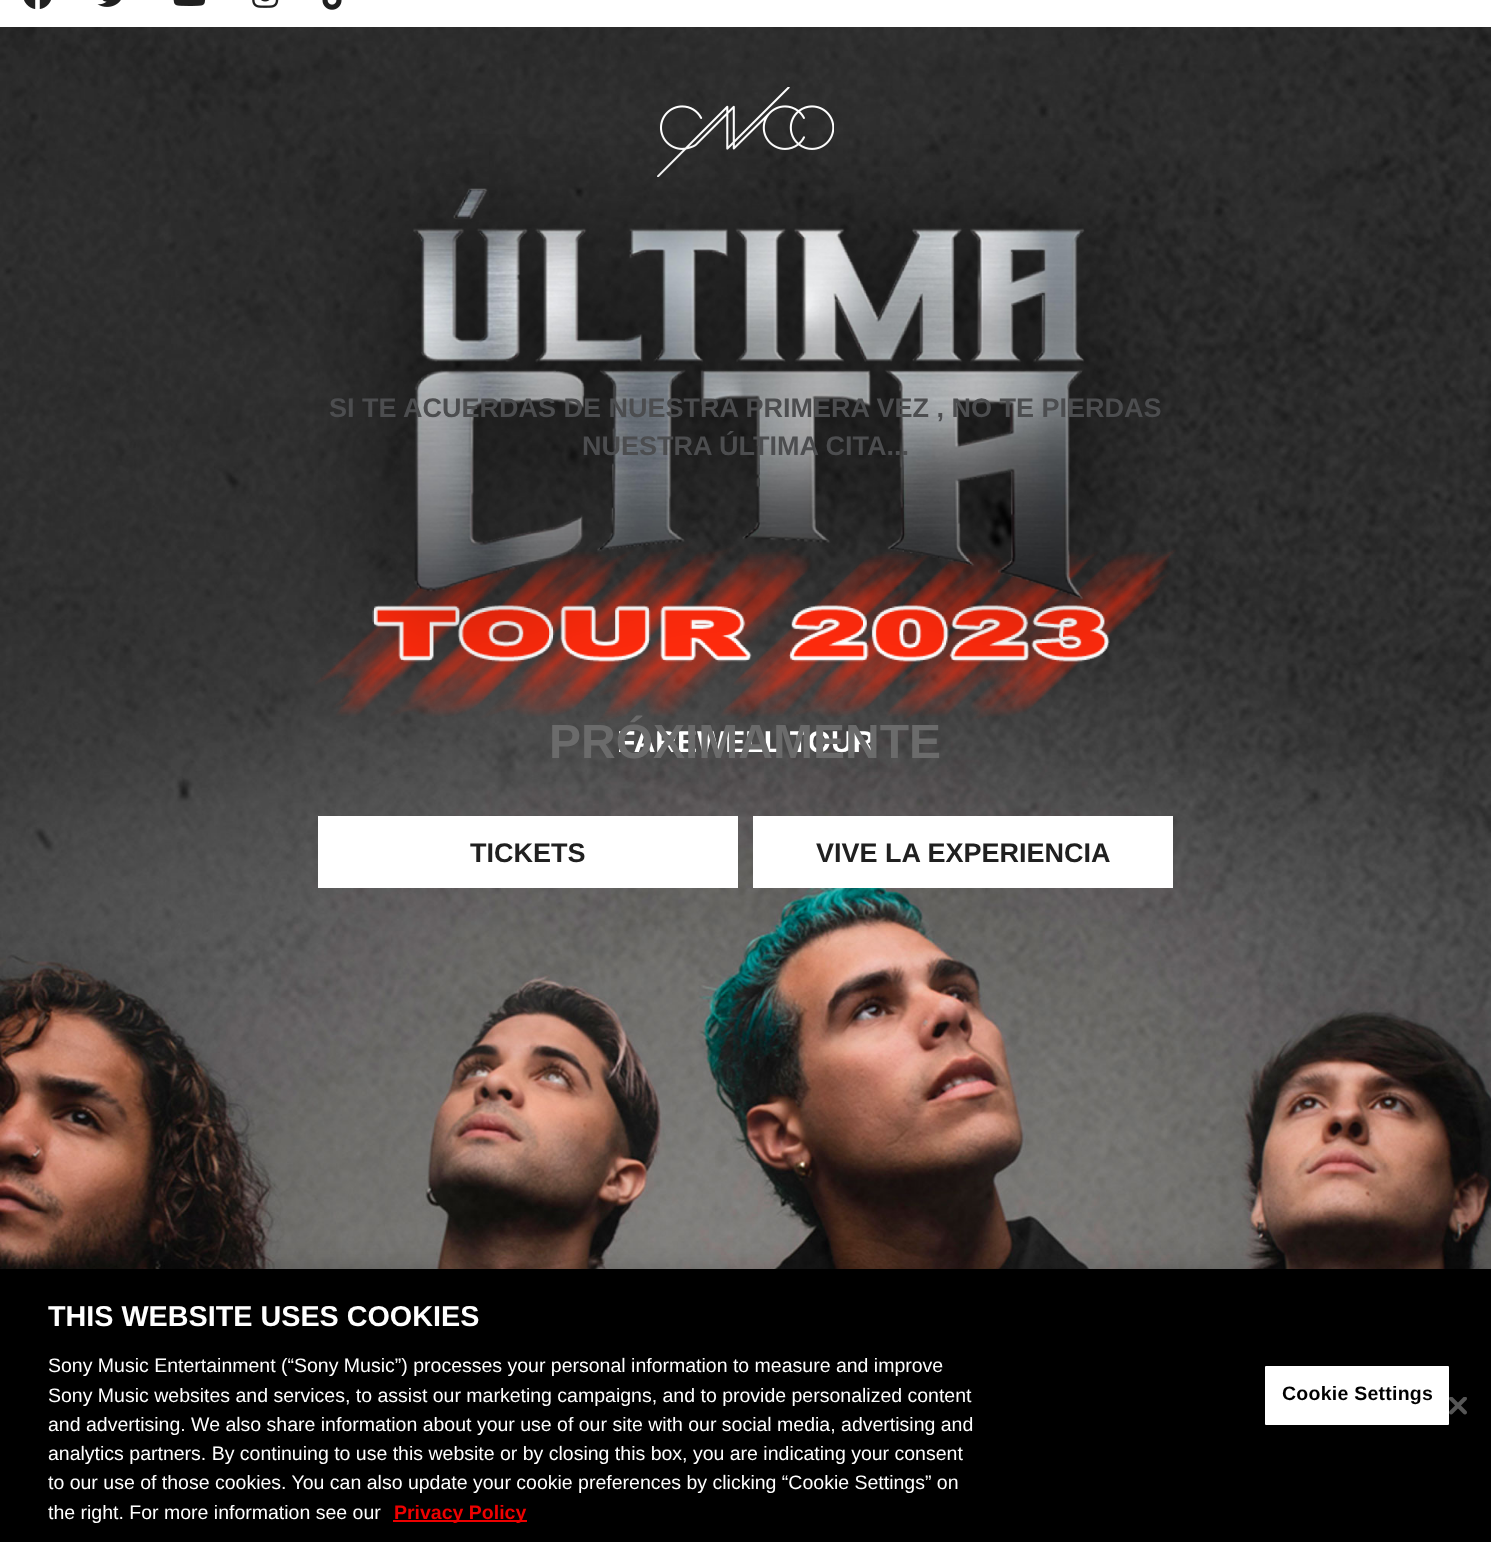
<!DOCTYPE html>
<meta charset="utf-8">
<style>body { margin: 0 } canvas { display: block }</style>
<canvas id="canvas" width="1491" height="1542"></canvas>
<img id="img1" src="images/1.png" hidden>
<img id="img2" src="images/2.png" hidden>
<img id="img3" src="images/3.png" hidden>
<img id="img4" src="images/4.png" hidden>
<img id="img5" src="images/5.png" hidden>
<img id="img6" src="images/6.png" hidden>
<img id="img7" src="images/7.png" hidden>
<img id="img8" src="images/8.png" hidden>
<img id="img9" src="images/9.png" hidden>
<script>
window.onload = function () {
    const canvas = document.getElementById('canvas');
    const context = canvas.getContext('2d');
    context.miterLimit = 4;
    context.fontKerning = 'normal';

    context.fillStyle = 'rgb(255, 255, 255)';
    context.fillRect(0, 0, 1491, 1542);
    context.drawImage(document.getElementById('img1'), 0, 27, 1491, 1242);
    context.drawImage(document.getElementById('img2'), 24, 0, 27, 9);
    context.drawImage(document.getElementById('img3'), 97, 0, 24, 7);
    context.drawImage(document.getElementById('img4'), 173, 0, 33, 6);
    context.drawImage(document.getElementById('img5'), 252, 0, 27, 8);
    context.drawImage(document.getElementById('img6'), 322, 0, 20, 10);
    context.drawImage(document.getElementById('img7'), 657, 87, 177, 90);
    context.drawImage(document.getElementById('img8'), 315, 134, 861, 588);
    context.fillRect(318, 816, 420, 72);
    context.fillRect(753, 816, 420, 72);
    context.fillStyle = 'rgba(0, 0, 0, 0.2)';
    context.filter = 'blur(13.5px)';
    context.beginPath();
    context.rect(0, 1269, 1491, 273);
    context.fill();
    context.filter = 'none';
    context.fillStyle = 'rgb(0, 0, 0)';
    context.fillRect(0, 1269, 1491, 273);
    context.fillStyle = 'rgb(238, 0, 0)';
    context.fillRect(393, 1520, 134, 2);
    context.fillStyle = 'rgb(255, 255, 255)';
    context.beginPath();
    context.roundRect(1264, 1365, 186, 61, 2);
    context.fill();
    context.strokeStyle = 'rgb(0, 0, 0)';
    context.lineWidth = 2;
    context.stroke();
    context.drawImage(document.getElementById('img9'), 1449, 1397, 18, 18);
    context.font = 'bold 27px Liberation Sans';
    context.fillStyle = 'rgb(76, 77, 79)';
    context.fillText('SI TE ACUERDAS DE NUESTRA PRIMERA VEZ , NO TE PIERDAS', 329, 417);
    context.fillText('NUESTRA ÚLTIMA CITA...', 582, 455);
    context.font = 'bold 30px Liberation Sans';
    context.fillStyle = 'rgb(255, 255, 255)';
    context.fillText('FAREWELL TOUR', 617, 752);
    context.font = 'bold 48px Liberation Sans';
    context.fillStyle = 'rgb(107, 107, 107)';
    context.fillText('PRÓXIMAMENTE', 549, 758);
    context.font = 'bold 27px Liberation Sans';
    context.fillStyle = 'rgb(32, 32, 32)';
    context.fillText('TICKETS', 470, 862);
    context.fillText('VIVE LA EXPERIENCIA', 816, 862);
    context.font = 'bold 28.75px Liberation Sans';
    context.fillStyle = 'rgb(255, 255, 255)';
    context.fillText('THIS WEBSITE USES COOKIES', 48, 1326);
    context.font = '19.5px Liberation Sans';
    context.fillText('Sony Music Entertainment (“Sony Music”) processes your personal information to measure and improve', 48, 1372);
    context.fillText('Sony Music websites and services, to assist our marketing campaigns, and to provide personalized content', 48, 1402);
    context.fillText('and advertising. We also share information about your use of our site with our social media, advertising and', 48, 1431);
    context.fillText('analytics partners. By continuing to use this website or by closing this box, you are indicating your consent', 48, 1460);
    context.fillText('to our use of those cookies. You can also update your cookie preferences by clicking “Cookie Settings” on', 48, 1489);
    context.fillText('the right. For more information see our', 48, 1519);
    context.font = 'bold 19.5px Liberation Sans';
    context.fillStyle = 'rgb(238, 0, 0)';
    context.fillText('Privacy Policy', 394, 1519);
    context.letterSpacing = '0.25px';
    context.fillStyle = 'rgb(0, 0, 0)';
    context.fillText('Cookie Settings', 1282, 1400);
};
</script>
